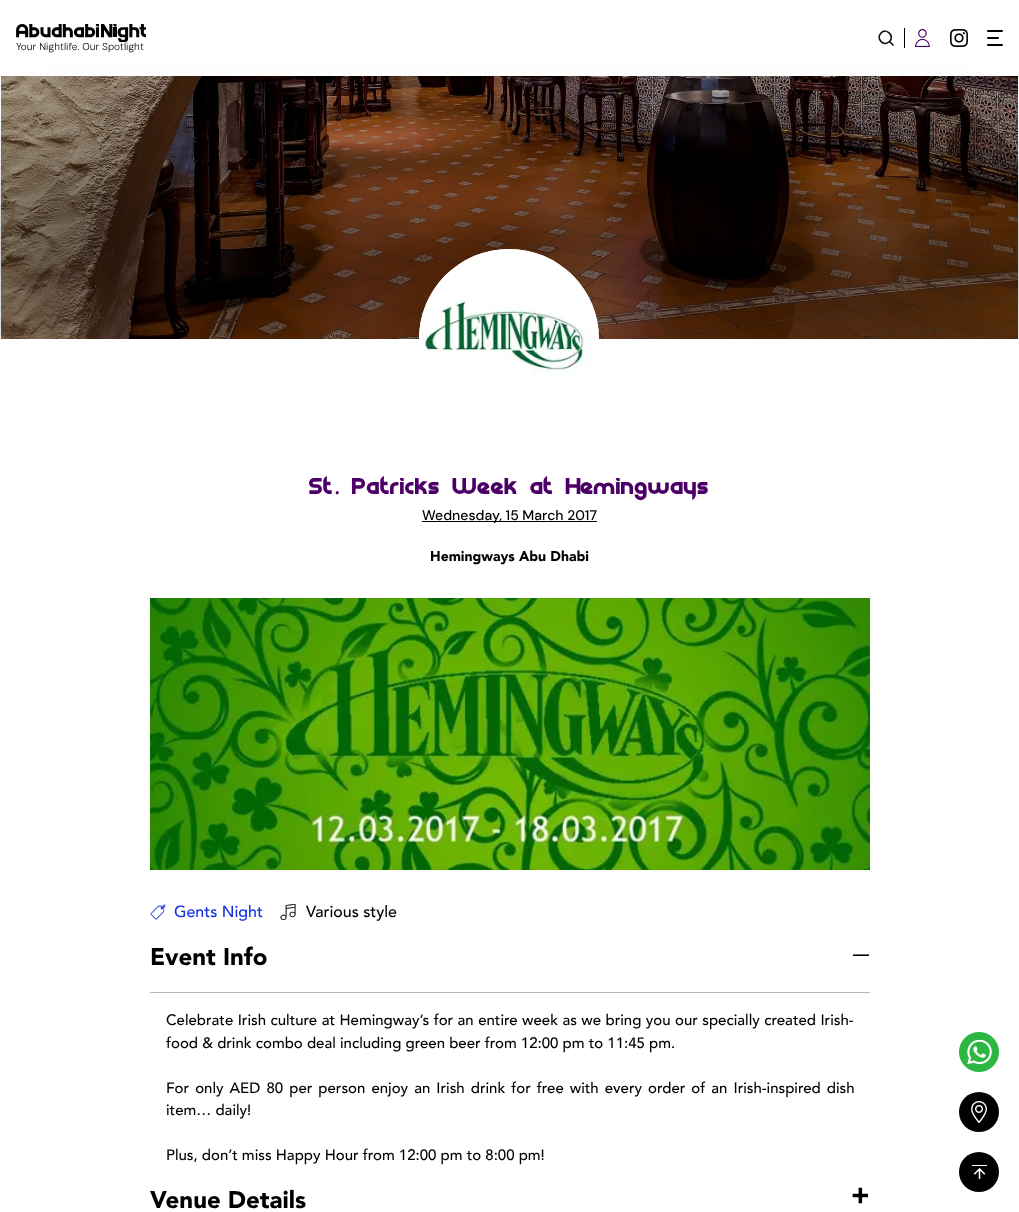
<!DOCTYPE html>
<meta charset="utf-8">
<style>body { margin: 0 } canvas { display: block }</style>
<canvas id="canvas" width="1019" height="1212"></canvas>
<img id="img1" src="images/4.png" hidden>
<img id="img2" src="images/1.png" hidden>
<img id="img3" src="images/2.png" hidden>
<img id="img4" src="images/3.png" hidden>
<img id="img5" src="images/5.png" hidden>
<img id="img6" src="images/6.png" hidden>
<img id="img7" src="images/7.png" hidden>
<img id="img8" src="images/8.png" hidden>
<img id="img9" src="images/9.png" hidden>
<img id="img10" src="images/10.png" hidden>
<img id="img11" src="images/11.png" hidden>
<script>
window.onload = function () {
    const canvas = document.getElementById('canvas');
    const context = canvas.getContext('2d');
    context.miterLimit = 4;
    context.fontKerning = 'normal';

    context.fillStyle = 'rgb(255, 255, 255)';
    context.fillRect(0, 0, 1019, 1212);
    context.drawImage(document.getElementById('img1'), 1, 76, 1017, 263);
    context.save();
    context.beginPath();
    context.rect(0, 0, 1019, 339);
    context.clip();
    context.fillStyle = 'rgba(0, 0, 0, 0.2)';
    context.filter = 'blur(50px)';
    context.beginPath();
    context.rect(1, 171, 1017, 169);
    context.fill();
    context.filter = 'none';
    context.filter = 'blur(50px)';
    context.beginPath();
    context.rect(1, 171, 1017, 169);
    context.fill();
    context.filter = 'none';
    context.restore();
    context.fillRect(70, 74, 879, 2);
    context.drawImage(document.getElementById('img2'), 16, 24, 130, 18);
    context.beginPath();
    context.moveTo(893, 45);
    context.lineTo(889.5, 41.5);
    context.moveTo(889.5, 41.5);
    context.bezierCurveTo(895, 36, 886.5, 27.5, 881, 33);
    context.bezierCurveTo(875.5, 39, 884, 47, 889.5, 41.5);
    context.closePath();
    context.strokeStyle = 'rgb(18, 18, 18)';
    context.lineWidth = 1.7;
    context.lineCap = 'round';
    context.lineJoin = 'round';
    context.stroke();
    context.fillStyle = 'rgb(0, 0, 0)';
    context.fillRect(904, 28, 1, 20);
    context.drawImage(document.getElementById('img3'), 915, 29, 15, 18);
    context.drawImage(document.getElementById('img4'), 950, 29, 18, 18);
    context.beginPath();
    context.roundRect(987, 30, 16, 2, 1);
    context.fill();
    context.beginPath();
    context.roundRect(987, 37, 12, 2, 1);
    context.fill();
    context.beginPath();
    context.roundRect(987, 44, 16, 2, 1);
    context.fill();
    context.fillStyle = 'rgba(0, 0, 0, 0.3)';
    context.fillRect(1, 76, 1017, 263);
    context.fillStyle = 'rgb(255, 255, 255)';
    context.beginPath();
    context.arc(509, 339, 90, 0, 2 * Math.PI);
    context.fill();
    context.drawImage(document.getElementById('img5'), 419, 249, 180, 180);
    context.fillStyle = 'rgb(0, 0, 0)';
    context.fillRect(422, 521, 175, 1);
    context.drawImage(document.getElementById('img6'), 150, 598, 720, 272);
    context.drawImage(document.getElementById('img7'), 150, 904, 16, 16);
    context.drawImage(document.getElementById('img8'), 280, 903, 16, 18);
    context.fillStyle = 'rgb(181, 181, 181)';
    context.fillRect(150, 992, 720, 1);
    context.drawImage(document.getElementById('img9'), 959, 1032, 40, 40);
    context.fillStyle = 'rgb(0, 0, 0)';
    context.beginPath();
    context.arc(979, 1112, 20, 0, 2 * Math.PI);
    context.fill();
    context.drawImage(document.getElementById('img10'), 971, 1101, 16, 22);
    context.beginPath();
    context.arc(979, 1172, 20, 0, 2 * Math.PI);
    context.fill();
    context.drawImage(document.getElementById('img11'), 972, 1165, 15, 14);
    context.font = '300 10px DM Sans';
    context.fillText('Your Nightlife. Our Spotlight', 16, 50);
    context.font = '24px "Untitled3"';
    context.fillStyle = 'rgb(76, 0, 103)';
    context.fillText('St', 309, 494);
    context.font = '24px Noto Sans';
    context.fillText('.', 334, 494);
    context.font = '24px "Untitled3"';
    context.fillText('Patricks Week at Hemingways', 352, 494);
    context.font = '500 14px DM Sans';
    context.fillStyle = 'rgb(0, 0, 0)';
    context.fillText('Wednesday, 15 March 2017', 422, 520);
    context.font = '900 14px Avenir';
    context.fillText('Hemingways Abu Dhabi', 430, 561);
    context.font = '500 16px Avenir';
    context.fillStyle = 'rgb(18, 46, 230)';
    context.fillText('Gents Night', 174, 917);
    context.fillStyle = 'rgb(0, 0, 0)';
    context.fillText('Various style', 306, 917);
    context.font = '900 24px Avenir';
    context.fillText('Event Info', 150, 965);
    context.font = '900 32px Avenir';
    context.fillText('_', 853, 952);
    context.wordSpacing = '0.3px';
    context.font = '500 15px Avenir';
    context.fillText('Celebrate Irish culture at Hemingway’s for an entire week as we bring you our specially created Irish-', 166, 1025);
    context.wordSpacing = '0px';
    context.fillText('food & drink combo deal including green beer from 12:00 pm to 11:45 pm.', 166, 1048);
    context.wordSpacing = '1.9px';
    context.fillText('For only AED 80 per person enjoy an Irish drink for free with every order of an Irish-inspired dish', 166, 1093);
    context.wordSpacing = '0px';
    context.fillText('item… daily!', 166, 1115);
    context.fillText('Plus, don’t miss Happy Hour from 12:00 pm to 8:00 pm!', 166, 1160);
    context.font = '900 24px Avenir';
    context.fillText('Venue Details', 150, 1208);
    context.font = '900 28px Avenir';
    context.fillText('+', 851, 1204);
};
</script>
